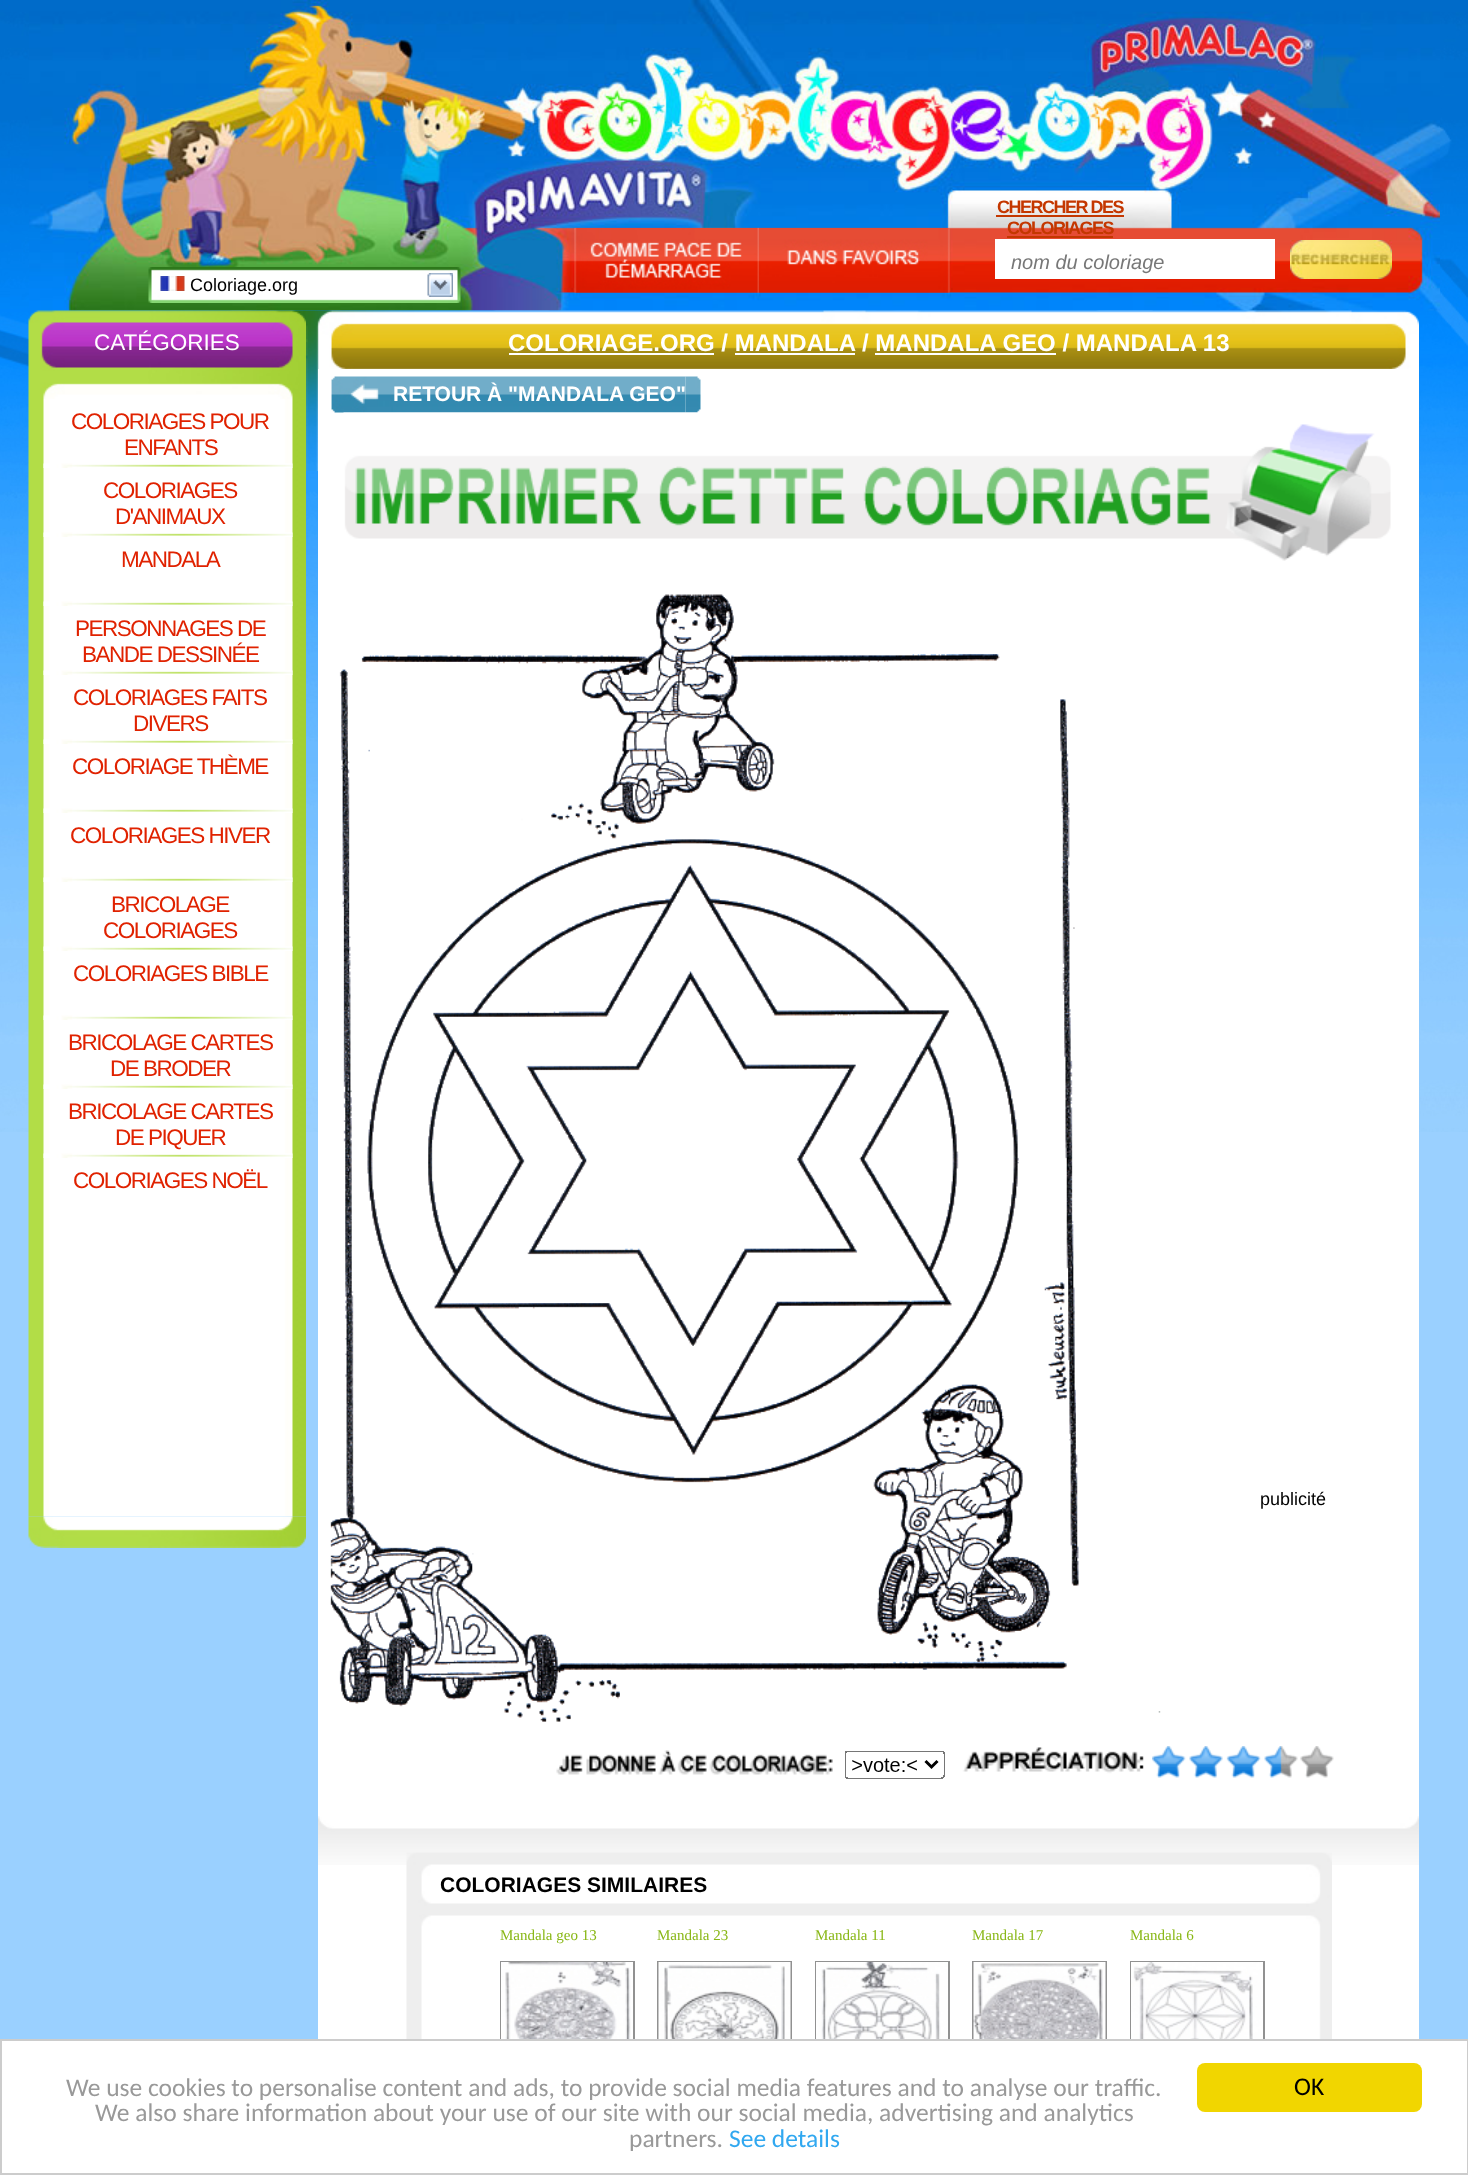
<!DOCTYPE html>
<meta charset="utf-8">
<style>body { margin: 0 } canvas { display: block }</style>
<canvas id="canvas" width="1468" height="2175"></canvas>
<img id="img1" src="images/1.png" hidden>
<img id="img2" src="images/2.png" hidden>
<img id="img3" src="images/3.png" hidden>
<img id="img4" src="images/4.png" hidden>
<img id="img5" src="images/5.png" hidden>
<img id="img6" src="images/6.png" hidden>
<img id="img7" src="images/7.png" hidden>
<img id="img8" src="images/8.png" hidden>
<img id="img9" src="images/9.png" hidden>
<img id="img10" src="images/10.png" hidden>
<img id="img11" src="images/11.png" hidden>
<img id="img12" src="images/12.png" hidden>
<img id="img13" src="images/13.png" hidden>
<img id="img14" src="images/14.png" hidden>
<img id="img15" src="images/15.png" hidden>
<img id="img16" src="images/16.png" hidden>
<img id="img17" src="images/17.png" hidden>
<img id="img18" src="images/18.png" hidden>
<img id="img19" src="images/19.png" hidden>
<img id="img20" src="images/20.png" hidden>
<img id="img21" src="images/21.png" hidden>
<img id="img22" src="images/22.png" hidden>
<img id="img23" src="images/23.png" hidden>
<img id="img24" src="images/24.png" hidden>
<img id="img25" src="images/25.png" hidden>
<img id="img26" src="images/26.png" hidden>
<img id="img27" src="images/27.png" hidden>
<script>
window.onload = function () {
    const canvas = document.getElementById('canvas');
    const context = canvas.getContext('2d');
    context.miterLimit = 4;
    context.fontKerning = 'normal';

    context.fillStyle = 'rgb(154, 208, 255)';
    context.fillRect(0, 0, 1468, 2175);
    context.drawImage(document.getElementById('img1'), 0, 0, 1468, 1132);
    context.drawImage(document.getElementById('img2'), 29, 0, 1411, 311);
    context.fillStyle = 'rgb(196, 55, 0)';
    context.fillRect(996, 215, 128, 2);
    context.fillRect(1007, 236, 106, 2);
    context.drawImage(document.getElementById('img3'), 574, 228, 185, 65);
    context.drawImage(document.getElementById('img4'), 759, 228, 191, 65);
    context.fillStyle = 'rgb(255, 255, 255)';
    context.fillRect(995, 239, 280, 40);
    context.drawImage(document.getElementById('img5'), 1290, 240, 102, 39);
    context.drawImage(document.getElementById('img6'), 148, 267, 313, 36);
    context.drawImage(document.getElementById('img7'), 160, 276, 25, 15);
    context.drawImage(document.getElementById('img8'), 427, 273, 26, 24);
    context.drawImage(document.getElementById('img9'), 28, 310, 278, 89);
    context.drawImage(document.getElementById('img10'), 28, 399, 278, 1118);
    context.drawImage(document.getElementById('img11'), 43, 463, 250, 5);
    context.drawImage(document.getElementById('img11'), 43, 532, 250, 5);
    context.drawImage(document.getElementById('img11'), 43, 601, 250, 5);
    context.drawImage(document.getElementById('img11'), 43, 670, 250, 5);
    context.drawImage(document.getElementById('img11'), 43, 739, 250, 5);
    context.drawImage(document.getElementById('img11'), 43, 808, 250, 5);
    context.drawImage(document.getElementById('img11'), 43, 877, 250, 5);
    context.drawImage(document.getElementById('img11'), 43, 946, 250, 5);
    context.drawImage(document.getElementById('img11'), 43, 1015, 250, 5);
    context.drawImage(document.getElementById('img11'), 43, 1084, 250, 5);
    context.drawImage(document.getElementById('img11'), 43, 1153, 250, 5);
    context.drawImage(document.getElementById('img12'), 28, 1516, 278, 32);
    context.drawImage(document.getElementById('img13'), 306, 310, 1113, 161);
    context.fillRect(509, 353, 205, 2);
    context.fillRect(735, 353, 120, 2);
    context.fillRect(875, 353, 181, 2);
    context.fillRect(318, 369, 1101, 1670);
    context.drawImage(document.getElementById('img14'), 331, 376, 62, 37);
    context.drawImage(document.getElementById('img15'), 393, 376, 293, 37);
    context.drawImage(document.getElementById('img16'), 685, 376, 16, 37);
    context.drawImage(document.getElementById('img17'), 343, 412, 1048, 149);
    context.drawImage(document.getElementById('img18'), 330, 594, 831, 1128);
    context.drawImage(document.getElementById('img19'), 556, 1746, 778, 33);
    context.drawImage(document.getElementById('img20'), 318, 1816, 1101, 49);
    context.drawImage(document.getElementById('img21'), 406, 1852, 926, 74);
    context.drawImage(document.getElementById('img22'), 406, 1926, 926, 113);
    context.strokeStyle = 'rgb(145, 145, 145)';
    context.lineWidth = 2;
    context.strokeRect(501, 1962, 133, 128);
    context.drawImage(document.getElementById('img23'), 501, 1962, 132, 77);
    context.strokeRect(658, 1962, 133, 128);
    context.drawImage(document.getElementById('img24'), 658, 1962, 133, 77);
    context.strokeRect(816, 1962, 133, 128);
    context.drawImage(document.getElementById('img25'), 816, 1962, 132, 77);
    context.strokeRect(973, 1962, 133, 128);
    context.drawImage(document.getElementById('img26'), 973, 1962, 133, 77);
    context.strokeRect(1131, 1962, 133, 128);
    context.drawImage(document.getElementById('img27'), 1131, 1962, 132, 77);
    context.beginPath();
    context.rect(1, 2040, 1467, 134);
    context.fill();
    context.strokeStyle = 'rgb(204, 204, 204)';
    context.stroke();
    context.fillStyle = 'rgb(241, 214, 0)';
    context.beginPath();
    context.roundRect(1197, 2063, 225, 49, 8);
    context.fill();
    context.letterSpacing = '-1.5px';
    context.font = 'bold 18px Liberation Sans';
    context.fillStyle = 'rgb(196, 55, 0)';
    context.fillText('CHERCHER DES', 997, 213);
    context.fillText('COLORIAGES', 1007, 234);
    context.letterSpacing = '0px';
    context.font = 'italic 20px Liberation Sans';
    context.fillStyle = 'rgb(119, 119, 119)';
    context.fillText('nom du coloriage', 1011, 269);
    context.font = '18px Liberation Sans';
    context.fillStyle = 'rgb(0, 0, 0)';
    context.fillText('Coloriage.org', 190, 291);
    context.font = '22.5px Liberation Sans';
    context.fillStyle = 'rgb(255, 255, 255)';
    context.fillText('CATÉGORIES', 94, 350);
    context.letterSpacing = '-1.5px';
    context.fillStyle = 'rgb(224, 34, 0)';
    context.fillText('COLORIAGES POUR', 71, 429);
    context.fillText('ENFANTS', 124, 455);
    context.fillText('COLORIAGES', 103, 498);
    context.fillText('D\'ANIMAUX', 115, 524);
    context.fillText('MANDALA', 121, 567);
    context.fillText('PERSONNAGES DE', 75, 636);
    context.fillText('BANDE DESSINÉE', 82, 662);
    context.fillText('COLORIAGES FAITS', 73, 705);
    context.fillText('DIVERS', 133, 731);
    context.fillText('COLORIAGE THÈME', 72, 774);
    context.fillText('COLORIAGES HIVER', 70, 843);
    context.fillText('BRICOLAGE', 111, 912);
    context.fillText('COLORIAGES', 103, 938);
    context.fillText('COLORIAGES BIBLE', 73, 981);
    context.fillText('BRICOLAGE CARTES', 68, 1050);
    context.fillText('DE BRODER', 110, 1076);
    context.fillText('BRICOLAGE CARTES', 68, 1119);
    context.fillText('DE PIQUER', 115, 1145);
    context.fillText('COLORIAGES NOËL', 73, 1188);
    context.letterSpacing = '0px';
    context.font = 'bold 24px Liberation Sans';
    context.fillStyle = 'rgb(255, 255, 255)';
    context.fillText('COLORIAGE.ORG / MANDALA', 508, 351);
    context.fillText('/ MANDALA GEO / MANDALA 13', 862, 351);
    context.font = 'bold 21px Liberation Sans';
    context.fillText('RETOUR À "MANDALA GEO"', 393, 401);
    context.font = '18px Liberation Sans';
    context.fillStyle = 'rgb(0, 0, 0)';
    context.fillText('publicité', 1260, 1505);
    context.font = 'bold 21px Liberation Sans';
    context.fillText('COLORIAGES SIMILAIRES', 440, 1892);
    context.font = '15px Liberation Serif';
    context.fillStyle = 'rgb(136, 183, 20)';
    context.fillText('Mandala geo 13', 500, 1940);
    context.fillText('Mandala 23', 657, 1940);
    context.fillText('Mandala 11', 815, 1940);
    context.fillText('Mandala 17', 972, 1940);
    context.fillText('Mandala 6', 1130, 1940);
    context.font = '25.5px Carlito';
    context.fillStyle = 'rgb(153, 153, 153)';
    context.fillText('We use cookies to personalise content and ads, to provide social media features and to analyse our traffic.', 66, 2096);
    context.fillText('We also share information about your use of our site with our social media, advertising and analytics', 95, 2121);
    context.fillText('partners.', 629, 2147);
    context.fillStyle = 'rgb(49, 168, 240)';
    context.fillText('See details', 729, 2147);
    context.fillStyle = 'rgb(0, 0, 0)';
    context.fillText('OK', 1294, 2095);
};
</script>
